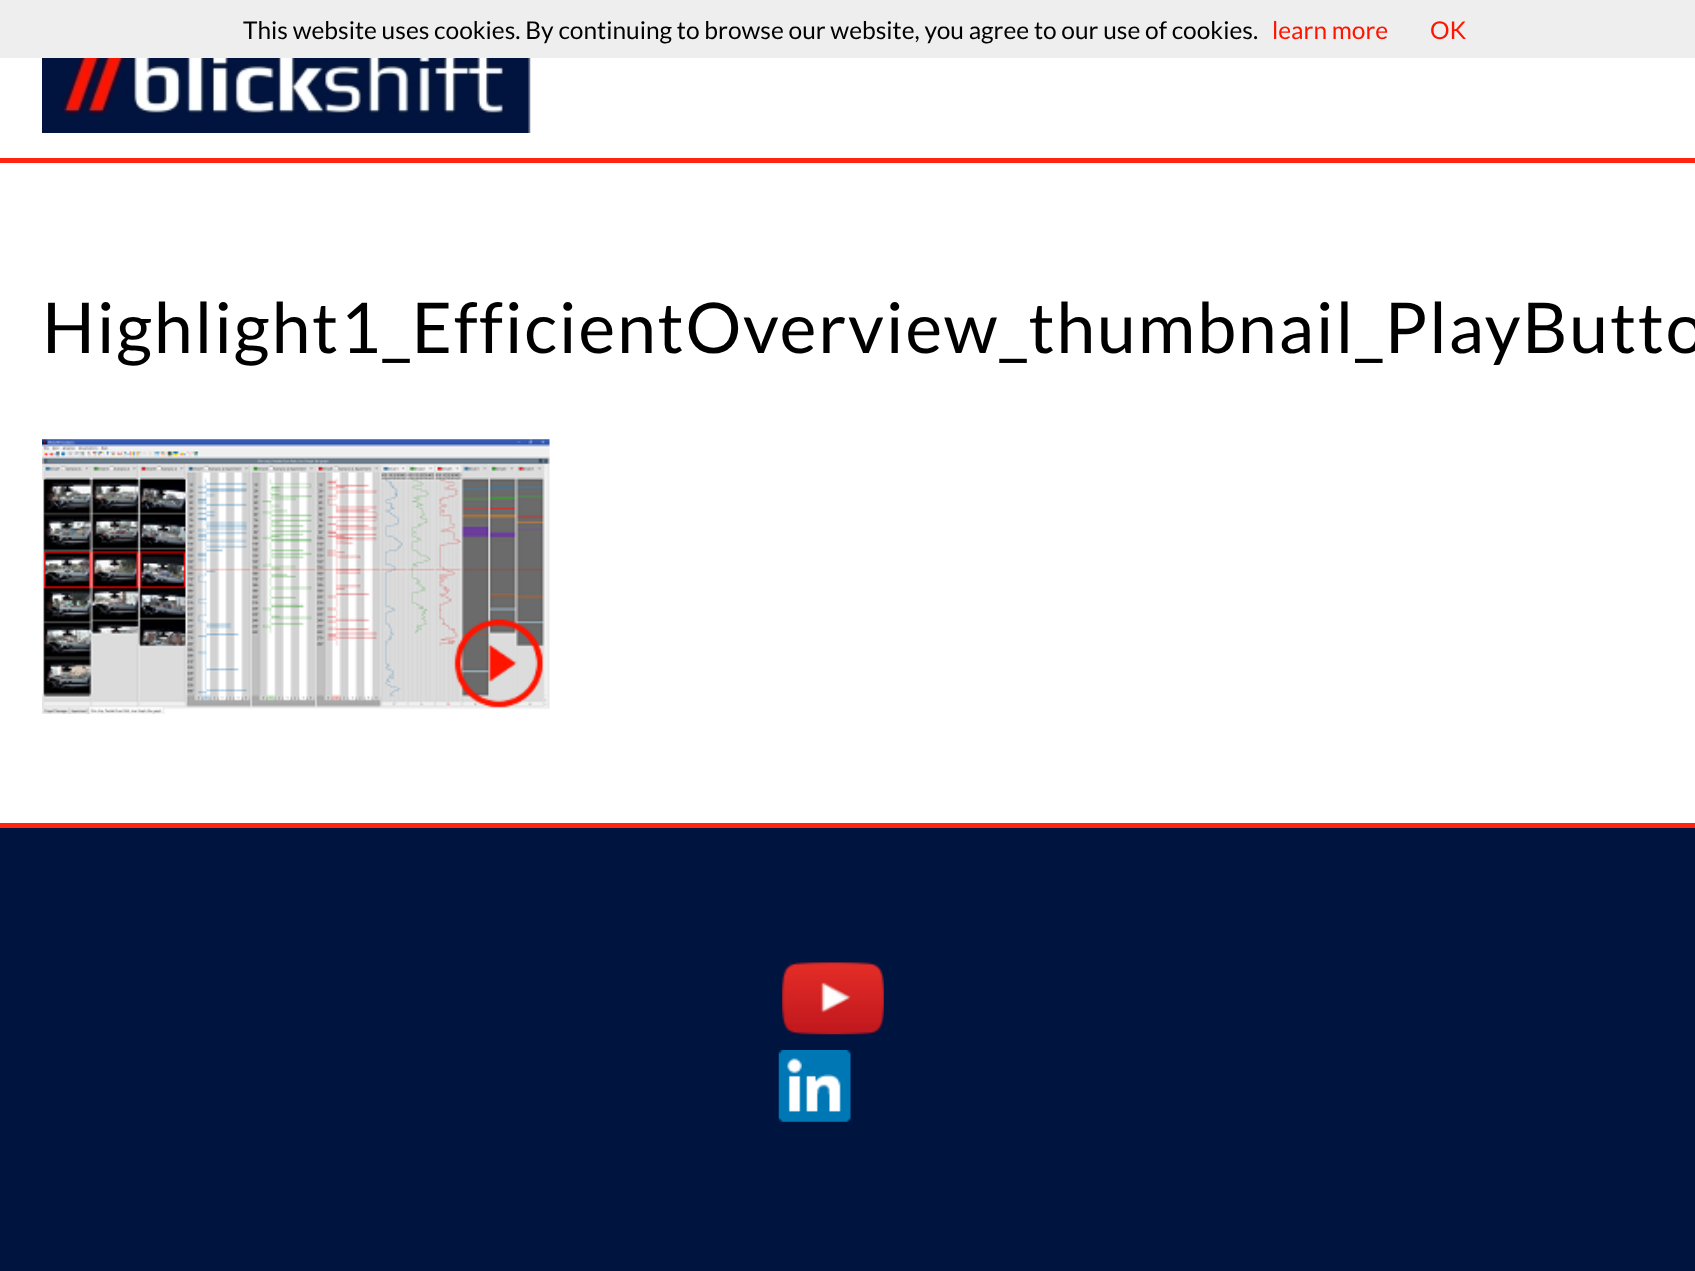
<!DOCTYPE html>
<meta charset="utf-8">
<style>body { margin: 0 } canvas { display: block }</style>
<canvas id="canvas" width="1695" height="1271"></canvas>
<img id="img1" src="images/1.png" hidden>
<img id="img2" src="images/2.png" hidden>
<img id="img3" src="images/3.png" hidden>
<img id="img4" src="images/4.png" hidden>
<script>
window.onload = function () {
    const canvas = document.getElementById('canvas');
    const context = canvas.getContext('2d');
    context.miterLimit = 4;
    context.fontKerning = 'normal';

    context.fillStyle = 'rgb(255, 255, 255)';
    context.fillRect(0, 0, 1695, 1271);
    context.fillStyle = 'rgb(238, 238, 238)';
    context.fillRect(0, 0, 1695, 58);
    context.fillStyle = 'rgb(255, 37, 18)';
    context.fillRect(0, 158, 1695, 5);
    context.drawImage(document.getElementById('img1'), 42, 58, 489, 75);
    context.drawImage(document.getElementById('img2'), 42, 439, 508, 275);
    context.fillStyle = 'rgb(0, 20, 64)';
    context.fillRect(0, 828, 1695, 443);
    context.fillStyle = 'rgb(255, 37, 18)';
    context.fillRect(0, 823, 1695, 5);
    context.drawImage(document.getElementById('img3'), 782, 962, 102, 73);
    context.drawImage(document.getElementById('img4'), 778, 1050, 73, 72);
    context.font = '24.5px Lato';
    context.fillStyle = 'rgb(0, 0, 0)';
    context.fillText('This website uses cookies. By continuing to browse our website, you agree to our use of cookies.', 243, 39);
    context.fillStyle = 'rgb(255, 20, 0)';
    context.fillText('learn more', 1272, 39);
    context.fillText('OK', 1430, 39);
    context.letterSpacing = '1.75px';
    context.font = '70px Lato';
    context.fillStyle = 'rgb(0, 0, 0)';
    context.fillText('Highlight1_EfficientOverview_thumbnail_PlayButto', 42, 353);
};
</script>
